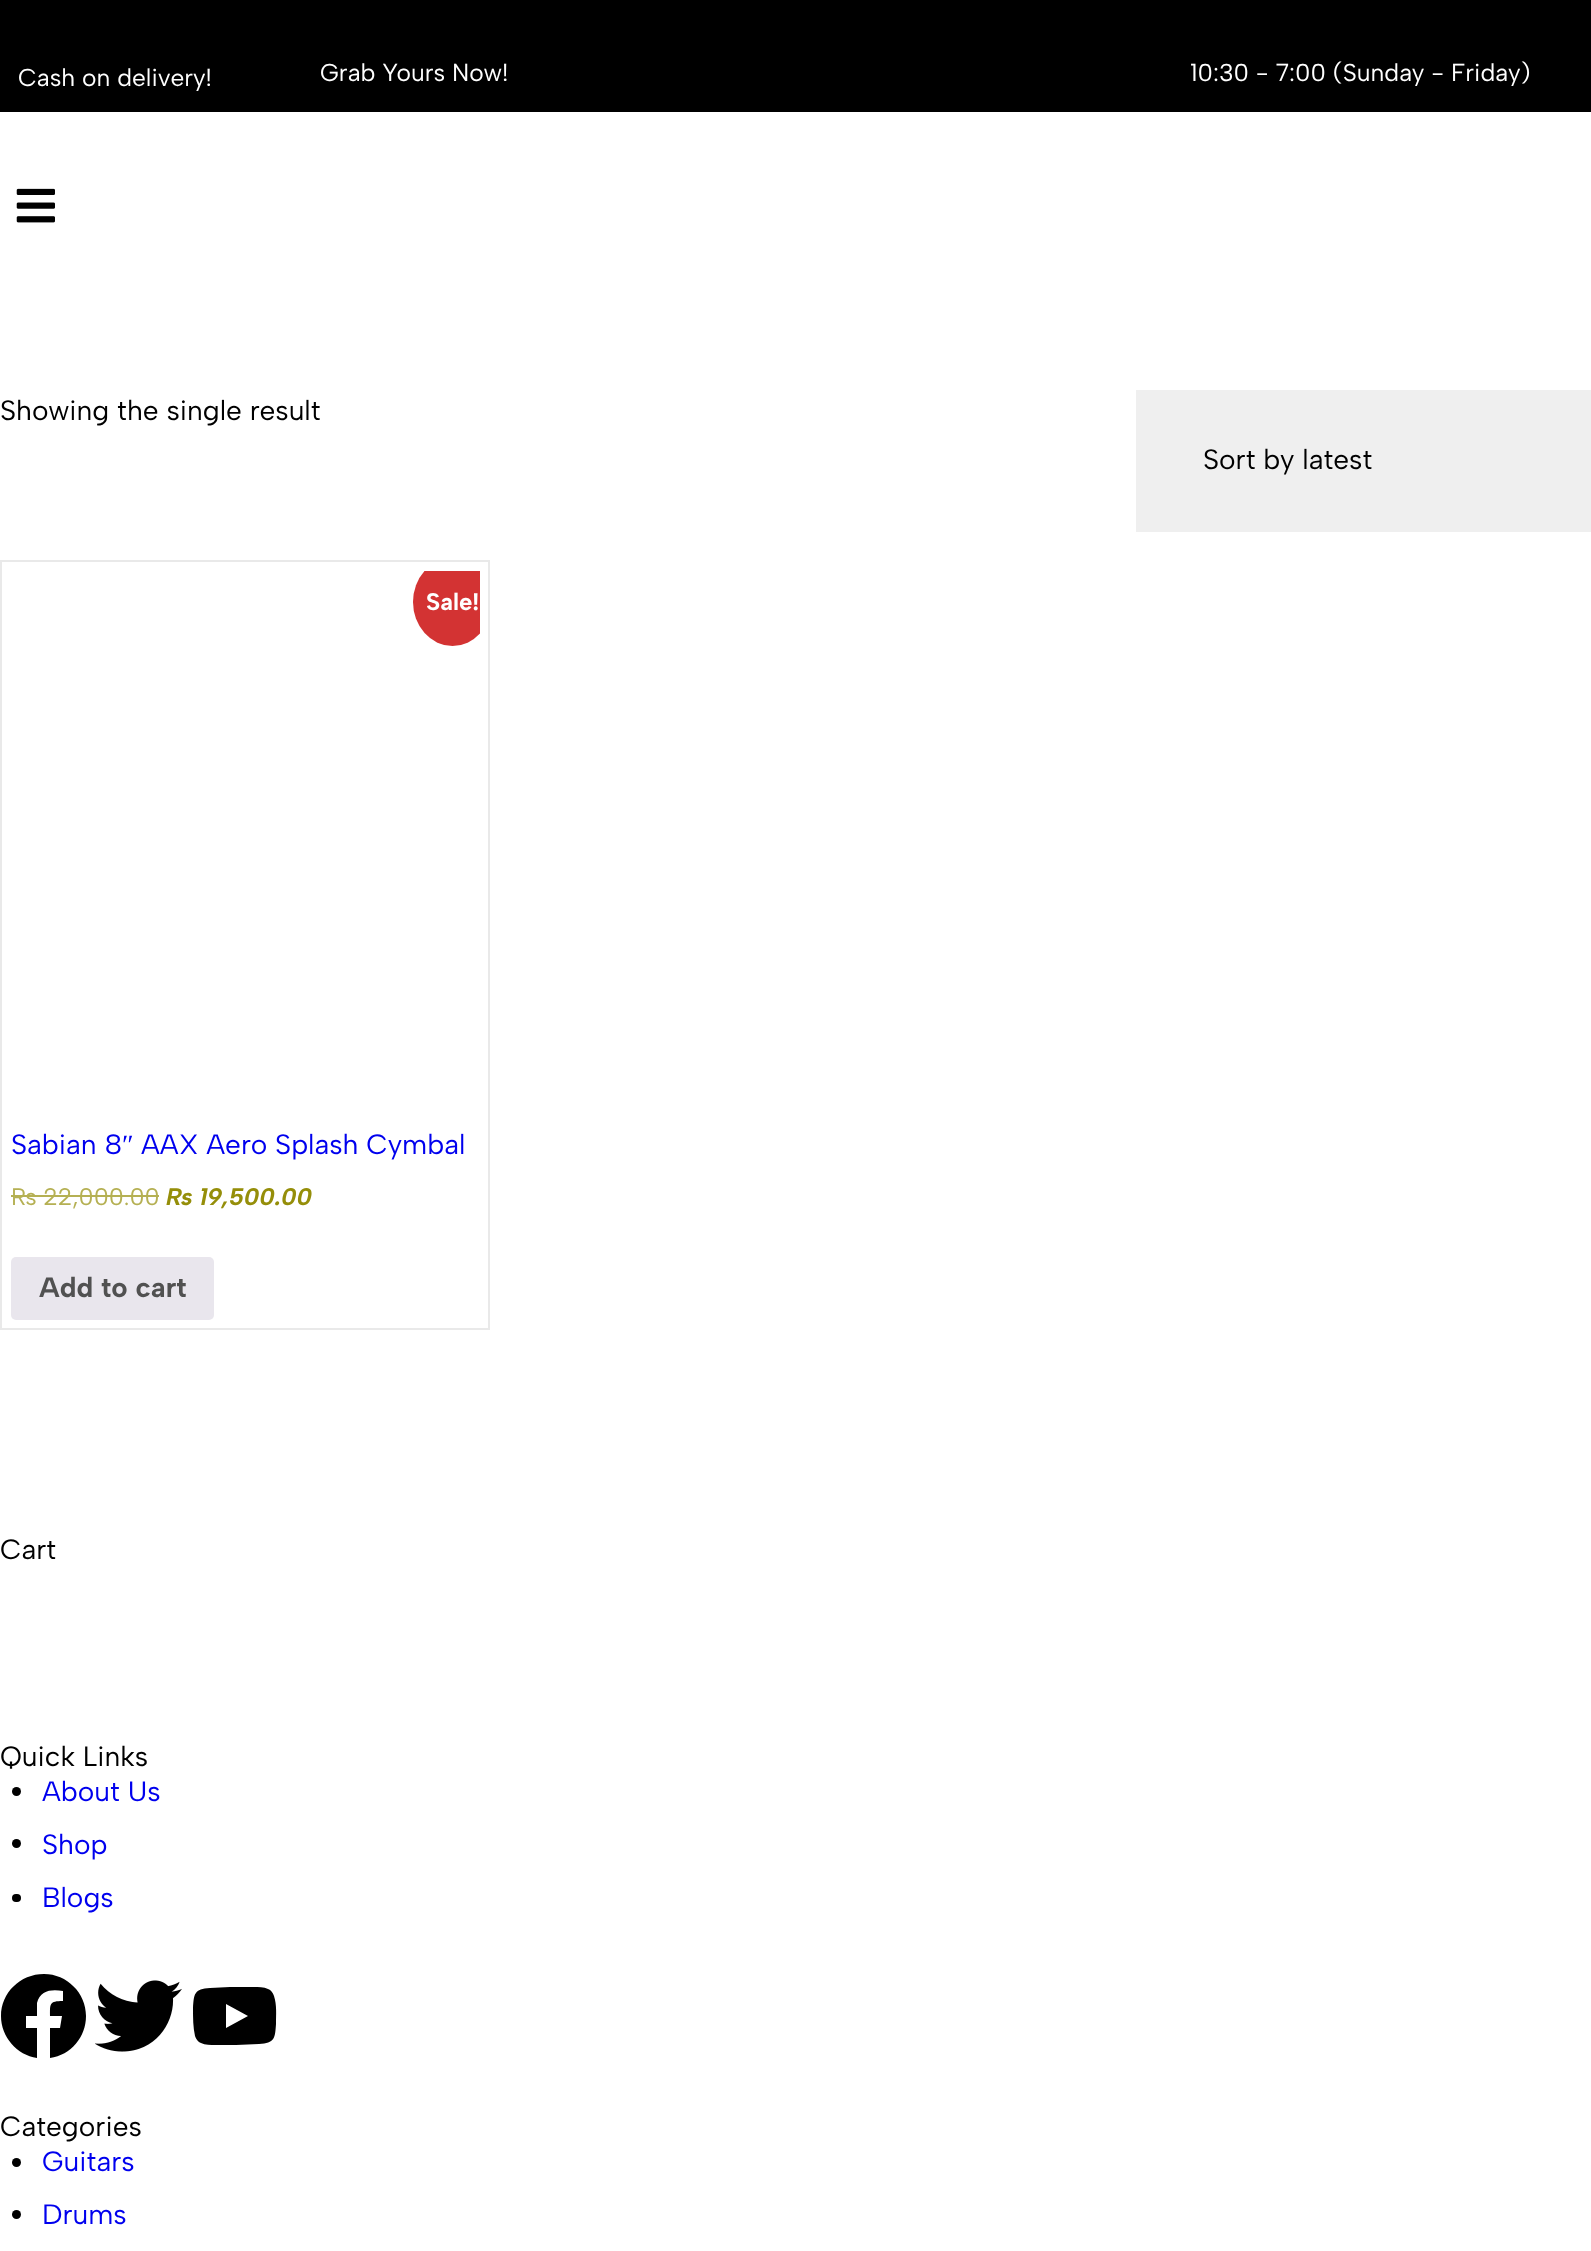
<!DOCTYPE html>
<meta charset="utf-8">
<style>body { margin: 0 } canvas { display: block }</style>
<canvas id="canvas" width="1591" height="2251"></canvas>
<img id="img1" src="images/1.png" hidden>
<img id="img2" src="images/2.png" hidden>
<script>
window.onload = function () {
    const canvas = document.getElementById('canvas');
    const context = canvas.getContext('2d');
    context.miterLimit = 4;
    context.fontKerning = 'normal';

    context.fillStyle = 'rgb(255, 255, 255)';
    context.fillRect(0, 0, 1591, 2251);
    context.fillStyle = 'rgb(0, 0, 0)';
    context.fillRect(0, 0, 1591, 112);
    context.drawImage(document.getElementById('img1'), 16, 188, 39, 35);
    context.fillStyle = 'rgb(239, 239, 239)';
    context.fillRect(1136, 390, 455, 142);
    context.strokeStyle = 'rgb(233, 233, 233)';
    context.lineWidth = 2;
    context.strokeRect(1, 561, 488, 768);
    context.save();
    context.beginPath();
    context.rect(11, 571, 469, 490);
    context.clip();
    context.fillStyle = 'rgb(211, 51, 51)';
    context.beginPath();
    context.ellipse(452.5, 602, 39.5, 44, 0, 0, 2 * Math.PI);
    context.fill();
    context.restore();
    context.fillStyle = 'rgb(181, 176, 83)';
    context.fillRect(11, 1195, 148, 2);
    context.fillStyle = 'rgb(233, 230, 237)';
    context.beginPath();
    context.roundRect(11, 1257, 203, 63, 5);
    context.fill();
    context.fillStyle = 'rgb(0, 0, 0)';
    context.beginPath();
    context.arc(16.5, 1791.5, 4.5, 0, 2 * Math.PI);
    context.fill();
    context.beginPath();
    context.arc(16.5, 1843.5, 4.5, 0, 2 * Math.PI);
    context.fill();
    context.beginPath();
    context.roundRect(12, 1894, 9, 8, 4);
    context.fill();
    context.beginPath();
    context.moveTo(86, 2016);
    context.bezierCurveTo(86, 1993, 67, 1974, 44, 1974);
    context.bezierCurveTo(20, 1974, 1, 1993, 1, 2016);
    context.bezierCurveTo(1, 2037, 17, 2055, 37, 2058);
    context.lineTo(37, 2028);
    context.lineTo(26, 2028);
    context.lineTo(26, 2016);
    context.lineTo(37, 2016);
    context.lineTo(37, 2003);
    context.bezierCurveTo(40, 1990, 52, 1989, 63, 1991);
    context.lineTo(63, 2001);
    context.bezierCurveTo(49, 2001, 50, 2004, 50, 2016);
    context.lineTo(62, 2016);
    context.lineTo(60, 2028);
    context.lineTo(50, 2028);
    context.lineTo(50, 2058);
    context.bezierCurveTo(71, 2055, 86, 2037, 86, 2016);
    context.closePath();
    context.fill();
    context.drawImage(document.getElementById('img2'), 95, 1980, 87, 72);
    context.beginPath();
    context.moveTo(274, 1996);
    context.bezierCurveTo(273, 1993, 271, 1990, 268, 1989);
    context.bezierCurveTo(264, 1987, 258, 1987, 254, 1987);
    context.lineTo(230, 1987);
    context.lineTo(210, 1988);
    context.bezierCurveTo(194, 1989, 194, 1994, 193, 2008);
    context.bezierCurveTo(193, 2018, 193, 2027, 195, 2036);
    context.bezierCurveTo(196, 2039, 198, 2042, 201, 2043);
    context.bezierCurveTo(205, 2045, 211, 2045, 215, 2045);
    context.lineTo(236, 2045);
    context.lineTo(259, 2044);
    context.bezierCurveTo(275, 2043, 275, 2038, 276, 2024);
    context.bezierCurveTo(276, 2015, 277, 2005, 274, 1996);
    context.closePath();
    context.moveTo(226, 2028);
    context.lineTo(226, 2004);
    context.lineTo(248, 2016);
    context.closePath();
    context.fill();
    context.beginPath();
    context.arc(16.5, 2162.5, 4.5, 0, 2 * Math.PI);
    context.fill();
    context.beginPath();
    context.arc(16.5, 2214.5, 4.5, 0, 2 * Math.PI);
    context.fill();
    context.font = '24.5px Albert Sans';
    context.fillStyle = 'rgb(255, 255, 255)';
    context.fillText('Cash on delivery!', 18, 86);
    context.fillText('Grab Yours Now!', 320, 81);
    context.fillText('10:30 - 7:00 (Sunday - Friday)', 1190, 81);
    context.font = '28px Albert Sans';
    context.fillStyle = 'rgb(0, 0, 0)';
    context.fillText('Showing the single result', 0, 420);
    context.fillText('Sort by latest', 1203, 469);
    context.font = 'bold 24px Albert Sans';
    context.fillStyle = 'rgb(255, 255, 255)';
    context.fillText('Sale!', 426, 610);
    context.font = '28px Albert Sans';
    context.fillStyle = 'rgb(0, 0, 238)';
    context.fillText('Sabian 8', 11, 1154);
    context.font = '28px Liberation Serif';
    context.fillText('″', 122, 1154);
    context.font = '28px Albert Sans';
    context.fillText('AAX Aero Splash Cymbal', 141, 1154);
    context.font = '24px Albert Sans';
    context.fillStyle = 'rgb(181, 176, 83)';
    context.fillText('₨ 22,000.00', 11, 1205);
    context.font = 'italic bold 24px Albert Sans';
    context.fillStyle = 'rgb(149, 142, 9)';
    context.fillText('₨ 19,500.00', 166, 1205);
    context.font = 'bold 28px Albert Sans';
    context.fillStyle = 'rgb(81, 81, 81)';
    context.fillText('Add to cart', 39, 1297);
    context.font = '28px Albert Sans';
    context.fillStyle = 'rgb(0, 0, 0)';
    context.fillText('Cart', 0, 1559);
    context.fillText('Quick Links', 0, 1766);
    context.fillStyle = 'rgb(0, 0, 238)';
    context.fillText('About Us', 42, 1801);
    context.fillText('Shop', 42, 1854);
    context.fillText('Blogs', 42, 1907);
    context.fillStyle = 'rgb(0, 0, 0)';
    context.fillText('Categories', 0, 2136);
    context.fillStyle = 'rgb(0, 0, 238)';
    context.fillText('Guitars', 42, 2171);
    context.fillText('Drums', 42, 2224);
};
</script>
